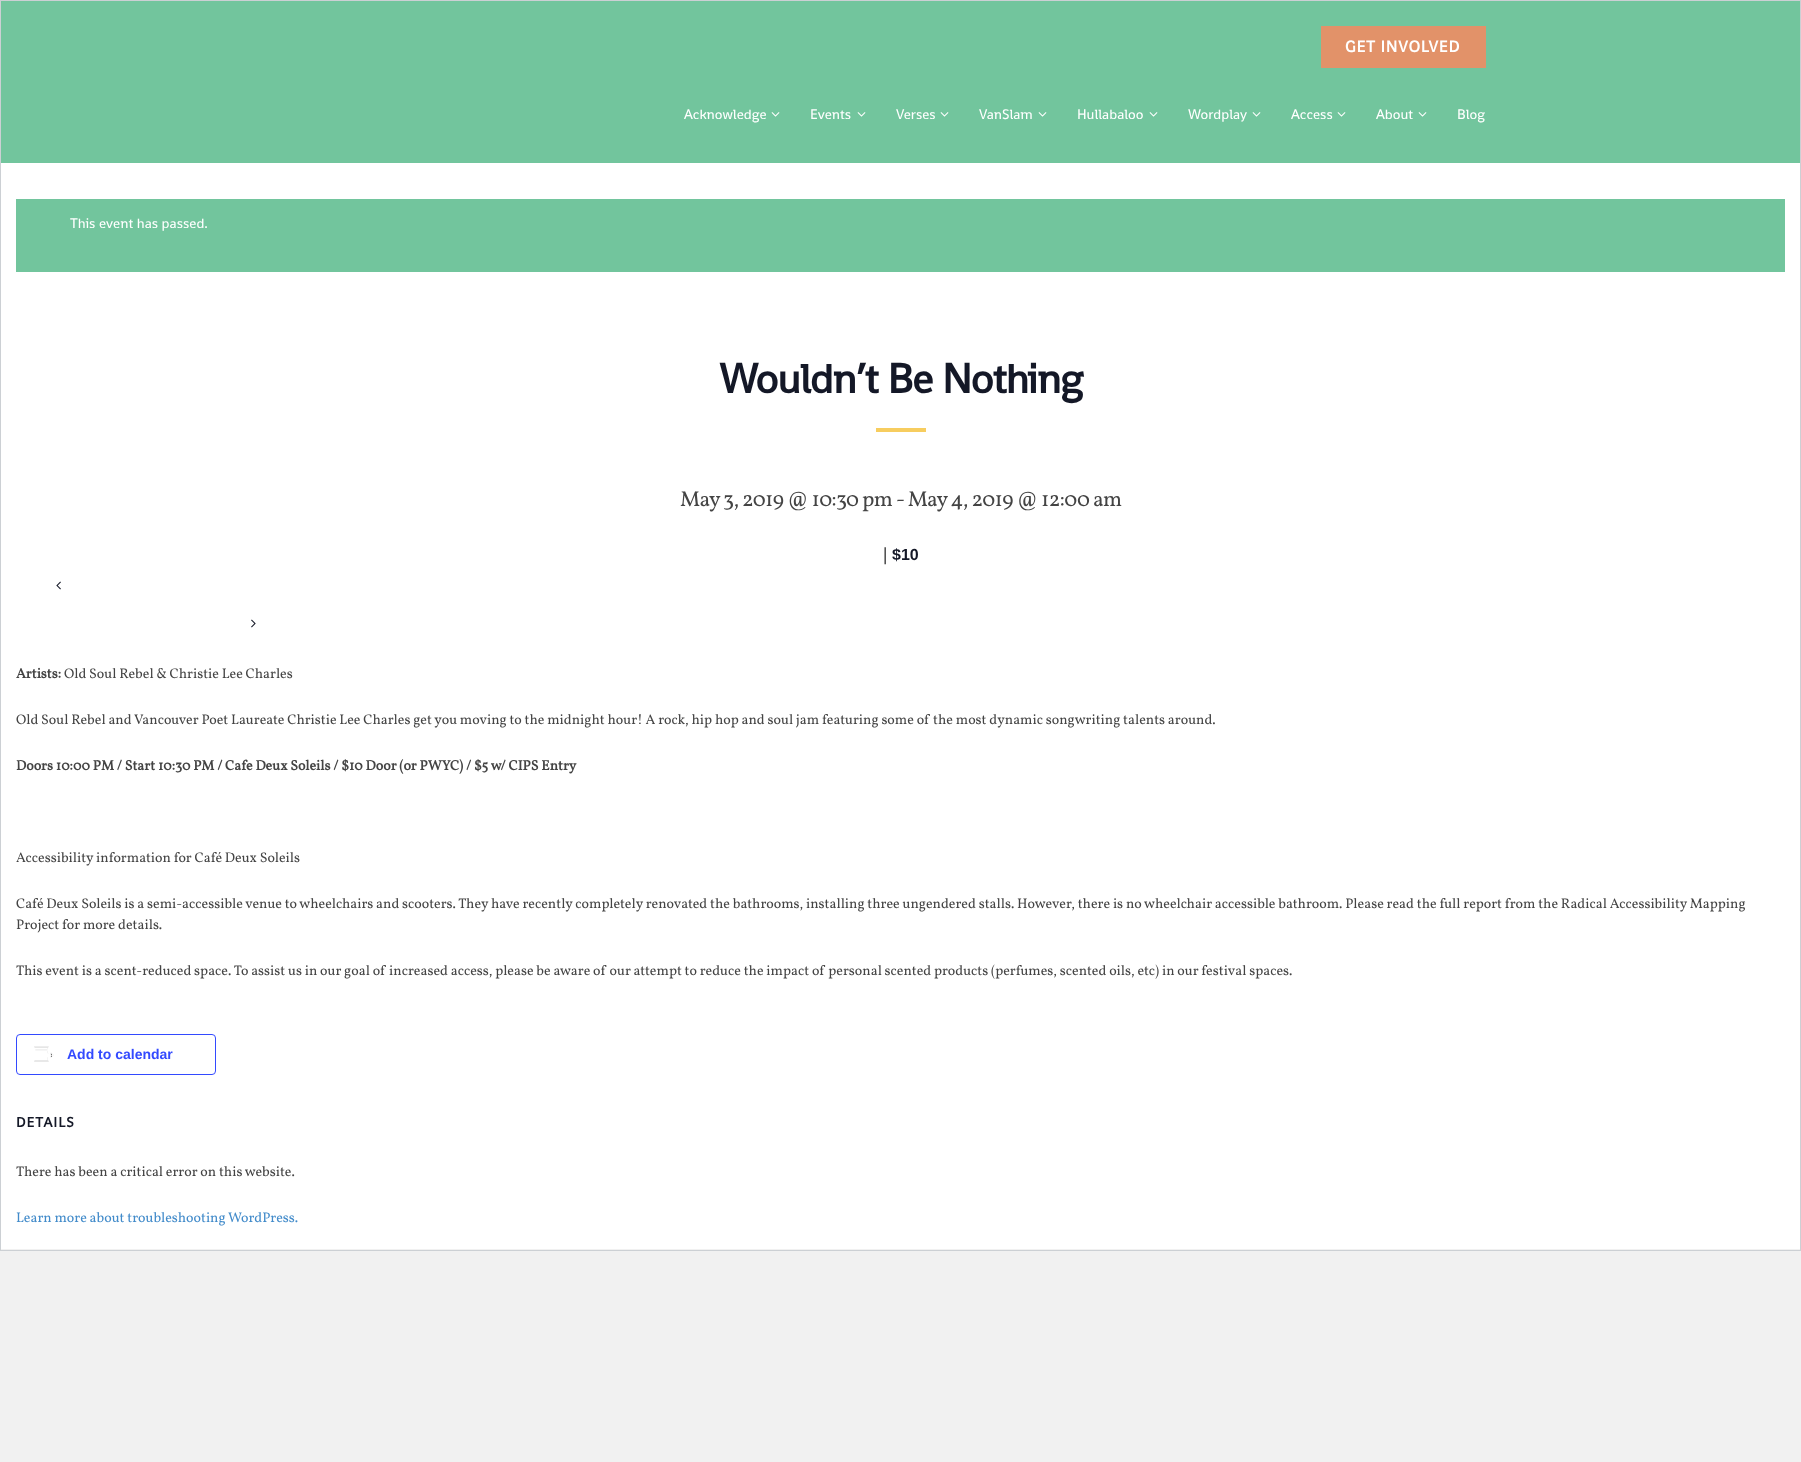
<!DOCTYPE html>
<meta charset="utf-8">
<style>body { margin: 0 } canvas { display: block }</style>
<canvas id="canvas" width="1801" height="1462"></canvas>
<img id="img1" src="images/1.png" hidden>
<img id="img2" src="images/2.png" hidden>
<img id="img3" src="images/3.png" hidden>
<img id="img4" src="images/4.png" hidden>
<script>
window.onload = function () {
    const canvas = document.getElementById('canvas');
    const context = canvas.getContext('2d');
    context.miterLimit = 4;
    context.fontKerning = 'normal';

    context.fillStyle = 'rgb(241, 241, 241)';
    context.fillRect(0, 0, 1801, 1462);
    context.fillStyle = 'rgb(255, 255, 255)';
    context.fillRect(1, 163, 1799, 1086);
    context.strokeStyle = 'rgb(204, 208, 212)';
    context.strokeRect(0.5, 0.5, 1800, 1250);
    context.fillStyle = 'rgb(114, 197, 157)';
    context.fillRect(1, 1, 1799, 162);
    context.fillStyle = 'rgb(226, 146, 105)';
    context.fillRect(1321, 26, 165, 42);
    context.drawImage(document.getElementById('img1'), 771, 112, 9, 5);
    context.drawImage(document.getElementById('img1'), 857, 112, 9, 5);
    context.drawImage(document.getElementById('img1'), 940, 112, 9, 5);
    context.drawImage(document.getElementById('img1'), 1038, 112, 9, 5);
    context.drawImage(document.getElementById('img1'), 1149, 112, 9, 5);
    context.drawImage(document.getElementById('img1'), 1252, 112, 9, 5);
    context.drawImage(document.getElementById('img1'), 1337, 112, 9, 5);
    context.drawImage(document.getElementById('img1'), 1418, 112, 9, 5);
    context.fillStyle = 'rgb(114, 197, 157)';
    context.fillRect(16, 199, 1769, 73);
    context.fillStyle = 'rgb(247, 205, 95)';
    context.fillRect(876, 428, 50, 4);
    context.drawImage(document.getElementById('img2'), 56, 581, 5, 9);
    context.drawImage(document.getElementById('img3'), 251, 619, 5, 9);
    context.beginPath();
    context.roundRect(16.5, 1034.5, 199, 40, 3.5);
    context.strokeStyle = 'rgb(51, 74, 255)';
    context.stroke();
    context.drawImage(document.getElementById('img4'), 34, 1046, 20, 16);
    context.letterSpacing = '0.75px';
    context.font = 'bold 16px Shanti';
    context.fillStyle = 'rgb(255, 255, 255)';
    context.fillText('GET INVOLVED', 1345, 52);
    context.letterSpacing = '0px';
    context.font = '14px Shanti';
    context.fillText('Acknowledge', 684, 119);
    context.fillText('Events', 810, 119);
    context.fillText('Verses', 896, 119);
    context.fillText('VanSlam', 979, 119);
    context.fillText('Hullabaloo', 1077, 119);
    context.fillText('Wordplay', 1188, 119);
    context.fillText('Access', 1291, 119);
    context.fillText('About', 1376, 119);
    context.fillText('Blog', 1457, 119);
    context.fillText('This event has passed.', 70, 228);
    context.letterSpacing = '-1.25px';
    context.font = 'bold 42px Shanti';
    context.fillStyle = 'rgb(20, 24, 39)';
    context.fillText('Wouldn’t Be Nothing', 719, 393);
    context.letterSpacing = '-0.65px';
    context.font = '21.6px Vollkorn';
    context.fillStyle = 'rgb(68, 68, 68)';
    context.fillText('May 3, 2019 @ 10:30 pm', 680, 506);
    context.fillText('- May 4, 2019 @ 12:00 am', 896, 506);
    context.letterSpacing = '0px';
    context.font = '18px Shanti';
    context.fillText('|', 883, 560);
    context.font = 'bold 16px Liberation Sans';
    context.fillStyle = 'rgb(20, 24, 39)';
    context.fillText('$10', 892, 560);
    context.font = 'bold 14px Vollkorn';
    context.fillStyle = 'rgb(68, 68, 68)';
    context.fillText('Artists:', 16, 678);
    context.font = '14px Vollkorn';
    context.fillText('Old Soul Rebel & Christie Lee Charles', 64, 678);
    context.fillText('Old Soul Rebel and Vancouver Poet Laureate Christie Lee Charles get you moving to the midnight hour! A rock, hip hop and soul jam featuring some of the most dynamic songwriting talents around.', 16, 724);
    context.font = 'bold 14px Vollkorn';
    context.fillText('Doors 10:00 PM / Start 10:30 PM / Cafe Deux Soleils / $10 Door (or PWYC) / $5 w/ CIPS Entry', 16, 770);
    context.font = '14px Vollkorn';
    context.fillText('Accessibility information for Café Deux Soleils', 16, 862);
    context.fillText('Café Deux Soleils is a semi-accessible venue to wheelchairs and scooters. They have recently completely renovated the bathrooms, installing three ungendered stalls. However, there is no wheelchair accessible bathroom. Please read the full report from the Radical Accessibility Mapping', 16, 908);
    context.fillText('Project for more details.', 16, 929);
    context.fillText('This event is a scent-reduced space. To assist us in our goal of increased access, please be aware of our attempt to reduce the impact of personal scented products (perfumes, scented oils, etc) in our festival spaces.', 16, 975);
    context.font = 'bold 14px Liberation Sans';
    context.fillStyle = 'rgb(51, 74, 255)';
    context.fillText('Add to calendar', 67, 1059);
    context.letterSpacing = '1px';
    context.font = 'bold 14px Shanti';
    context.fillStyle = 'rgb(20, 24, 39)';
    context.fillText('DETAILS', 16, 1127);
    context.letterSpacing = '0px';
    context.font = '14px Vollkorn';
    context.fillStyle = 'rgb(68, 68, 68)';
    context.fillText('There has been a critical error on this website.', 16, 1176);
    context.fillStyle = 'rgb(66, 139, 202)';
    context.fillText('Learn more about troubleshooting WordPress.', 16, 1222);
};
</script>
